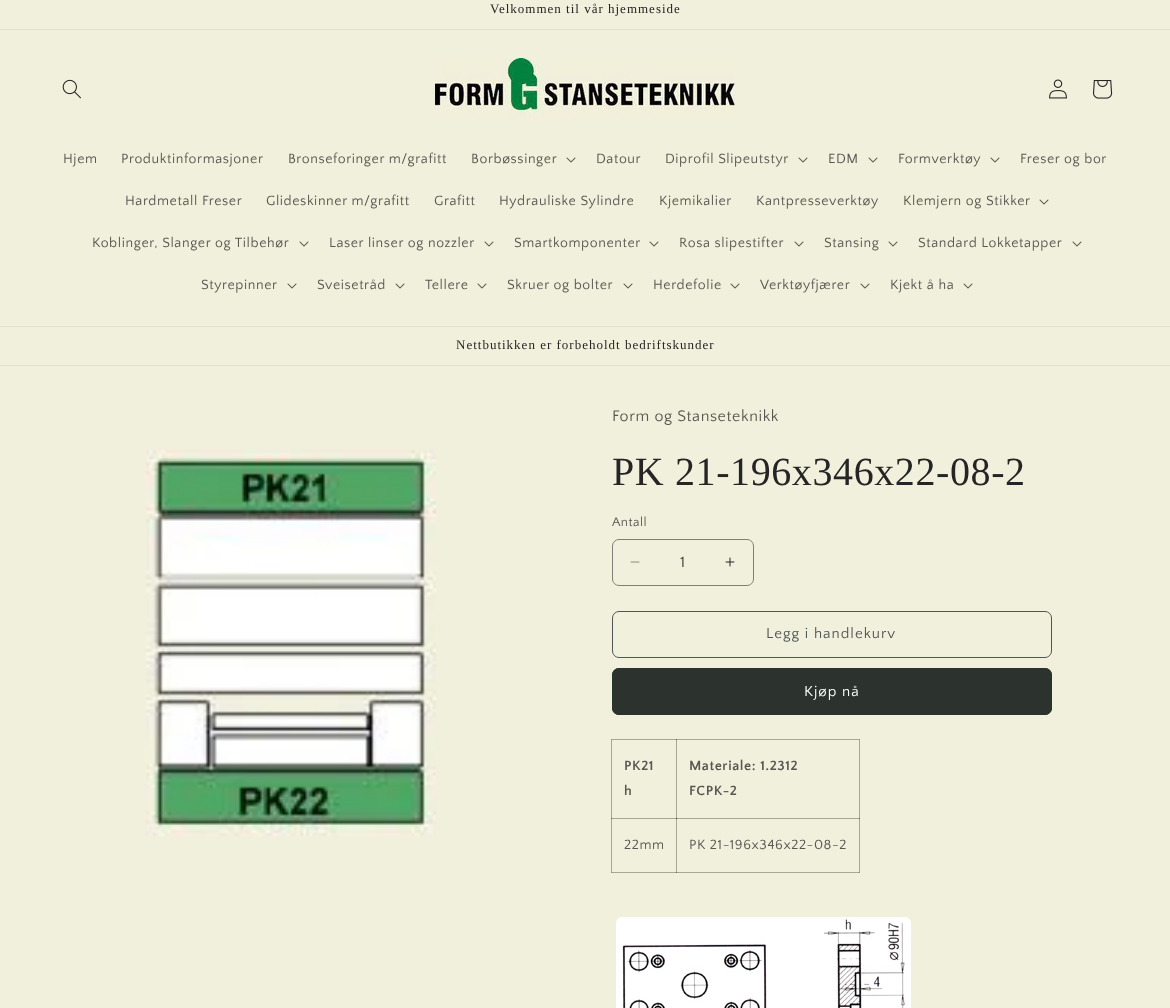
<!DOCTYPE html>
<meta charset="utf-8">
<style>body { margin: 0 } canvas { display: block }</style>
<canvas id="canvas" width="1170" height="1008"></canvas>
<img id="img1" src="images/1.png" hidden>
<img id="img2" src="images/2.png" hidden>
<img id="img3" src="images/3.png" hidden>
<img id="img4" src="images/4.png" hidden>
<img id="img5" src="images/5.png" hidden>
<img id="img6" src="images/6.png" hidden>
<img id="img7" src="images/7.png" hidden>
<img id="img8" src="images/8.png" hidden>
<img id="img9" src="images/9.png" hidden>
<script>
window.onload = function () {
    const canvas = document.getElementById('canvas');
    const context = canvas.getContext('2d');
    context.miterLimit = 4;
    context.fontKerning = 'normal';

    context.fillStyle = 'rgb(241, 240, 220)';
    context.fillRect(0, 0, 1170, 1008);
    context.fillStyle = 'rgb(225, 224, 205)';
    context.fillRect(0, 29, 1170, 1);
    context.fillRect(0, 326, 1170, 1);
    context.drawImage(document.getElementById('img1'), 62, 79, 19, 20);
    context.drawImage(document.getElementById('img2'), 435, 58, 300, 60);
    context.drawImage(document.getElementById('img3'), 1049, 79, 18, 20);
    context.drawImage(document.getElementById('img4'), 1093, 80, 20, 19);
    context.drawImage(document.getElementById('img5'), 566, 157, 10, 6);
    context.drawImage(document.getElementById('img5'), 798, 157, 10, 6);
    context.drawImage(document.getElementById('img5'), 868, 157, 10, 6);
    context.drawImage(document.getElementById('img5'), 990, 157, 10, 6);
    context.drawImage(document.getElementById('img5'), 1039, 199, 10, 6);
    context.drawImage(document.getElementById('img5'), 299, 241, 10, 6);
    context.drawImage(document.getElementById('img5'), 484, 241, 10, 6);
    context.drawImage(document.getElementById('img5'), 649, 241, 10, 6);
    context.drawImage(document.getElementById('img5'), 794, 241, 10, 6);
    context.drawImage(document.getElementById('img5'), 888, 241, 10, 6);
    context.drawImage(document.getElementById('img5'), 1072, 241, 10, 6);
    context.drawImage(document.getElementById('img5'), 287, 283, 10, 6);
    context.drawImage(document.getElementById('img5'), 395, 283, 10, 6);
    context.drawImage(document.getElementById('img5'), 477, 283, 10, 6);
    context.drawImage(document.getElementById('img5'), 623, 283, 10, 6);
    context.drawImage(document.getElementById('img5'), 730, 283, 10, 6);
    context.drawImage(document.getElementById('img5'), 860, 283, 10, 6);
    context.drawImage(document.getElementById('img5'), 963, 283, 10, 6);
    context.fillRect(0, 365, 1170, 1);
    context.drawImage(document.getElementById('img6'), 145, 449, 292, 388);
    context.drawImage(document.getElementById('img7'), 630, 561, 10, 2);
    context.drawImage(document.getElementById('img8'), 725, 557, 10, 10);
    context.beginPath();
    context.roundRect(612.5, 539.5, 141, 46, 6.5);
    context.strokeStyle = 'rgb(129, 128, 119)';
    context.stroke();
    context.beginPath();
    context.roundRect(612.5, 611.5, 439, 46, 6.5);
    context.strokeStyle = 'rgb(80, 86, 85)';
    context.stroke();
    context.fillStyle = 'rgb(44, 51, 47)';
    context.beginPath();
    context.roundRect(612, 668, 440, 47, 7);
    context.fill();
    context.beginPath();
    context.roundRect(612.5, 668.5, 439, 46, 6.5);
    context.strokeStyle = 'rgb(44, 51, 47)';
    context.stroke();
    context.strokeStyle = 'rgb(200, 199, 183)';
    context.strokeRect(611.5, 739.5, 248, 133);
    context.fillStyle = 'rgb(167, 167, 154)';
    context.fillRect(676, 739, 184, 1);
    context.fillStyle = 'rgba(37, 37, 37, 0.2)';
    context.fillRect(676, 818, 184, 1);
    context.fillRect(859, 818, 1, 55);
    context.fillRect(859, 739, 1, 80);
    context.fillRect(676, 872, 184, 1);
    context.fillRect(676, 818, 1, 55);
    context.fillRect(611, 818, 66, 1);
    context.fillRect(676, 818, 1, 55);
    context.fillRect(676, 818, 184, 1);
    context.fillRect(676, 739, 1, 80);
    context.fillRect(611, 739, 66, 1);
    context.fillRect(676, 739, 1, 80);
    context.fillRect(611, 872, 66, 1);
    context.fillRect(611, 818, 1, 55);
    context.fillRect(611, 818, 66, 1);
    context.fillRect(611, 739, 1, 80);
    context.drawImage(document.getElementById('img9'), 616, 917, 295, 91);
    context.letterSpacing = '1px';
    context.font = '13px Liberation Serif';
    context.fillStyle = 'rgb(37, 37, 37)';
    context.fillText('Velkommen til vår hjemmeside', 490, 13);
    context.letterSpacing = '0.6px';
    context.font = '14px Quattrocento Sans';
    context.fillStyle = 'rgb(88, 88, 83)';
    context.fillText('Hjem', 63, 163);
    context.fillText('Produktinformasjoner', 121, 163);
    context.fillText('Bronseforinger m/grafitt', 288, 163);
    context.fillText('Borbøssinger', 471, 163);
    context.fillText('Datour', 596, 163);
    context.fillText('Diprofil Slipeutstyr', 665, 163);
    context.fillText('EDM', 828, 163);
    context.fillText('Formverktøy', 898, 163);
    context.fillText('Freser og bor', 1020, 163);
    context.fillText('Hardmetall Freser', 125, 205);
    context.fillText('Glideskinner m/grafitt', 266, 205);
    context.fillText('Grafitt', 434, 205);
    context.fillText('Hydrauliske Sylindre', 499, 205);
    context.fillText('Kjemikalier', 659, 205);
    context.fillText('Kantpresseverktøy', 756, 205);
    context.fillText('Klemjern og Stikker', 903, 205);
    context.fillText('Koblinger, Slanger og Tilbehør', 92, 247);
    context.fillText('Laser linser og nozzler', 329, 247);
    context.fillText('Smartkomponenter', 514, 247);
    context.fillText('Rosa slipestifter', 679, 247);
    context.fillText('Stansing', 824, 247);
    context.fillText('Standard Lokketapper', 918, 247);
    context.fillText('Styrepinner', 201, 289);
    context.fillText('Sveisetråd', 317, 289);
    context.fillText('Tellere', 425, 289);
    context.fillText('Skruer og bolter', 507, 289);
    context.fillText('Herdefolie', 653, 289);
    context.fillText('Verktøyfjærer', 760, 289);
    context.fillText('Kjekt å ha', 890, 289);
    context.letterSpacing = '1px';
    context.font = '13px Liberation Serif';
    context.fillStyle = 'rgb(37, 37, 37)';
    context.fillText('Nettbutikken er forbeholdt bedriftskunder', 456, 349);
    context.letterSpacing = '0.6px';
    context.font = '16px Quattrocento Sans';
    context.fillStyle = 'rgb(88, 88, 83)';
    context.fillText('Form og Stanseteknikk', 612, 421);
    context.font = '40px Liberation Serif';
    context.fillStyle = 'rgb(37, 37, 37)';
    context.fillText('PK 21-196x346x22-08-2', 612, 485);
    context.letterSpacing = '0.5px';
    context.font = '13px Quattrocento Sans';
    context.fillStyle = 'rgb(88, 88, 83)';
    context.fillText('Antall', 612, 526);
    context.letterSpacing = '0px';
    context.font = '16px Quattrocento Sans';
    context.fillStyle = 'rgb(68, 67, 64)';
    context.fillText('1', 680, 567);
    context.letterSpacing = '1px';
    context.font = '15px Quattrocento Sans';
    context.fillStyle = 'rgb(80, 86, 85)';
    context.fillText('Legg i handlekurv', 766, 638);
    context.fillStyle = 'rgb(255, 255, 255)';
    context.fillText('Kjøp nå', 804, 696);
    context.letterSpacing = '0.6px';
    context.font = 'bold 14px Quattrocento Sans';
    context.fillStyle = 'rgb(88, 88, 83)';
    context.fillText('PK21', 624, 770);
    context.fillText('h', 624, 795);
    context.fillText('Materiale: 1.2312', 689, 770);
    context.fillText('FCPK-2', 689, 795);
    context.font = '14px Quattrocento Sans';
    context.fillText('22mm', 624, 849);
    context.fillText('PK 21-196x346x22-08-2', 689, 849);
};
</script>
